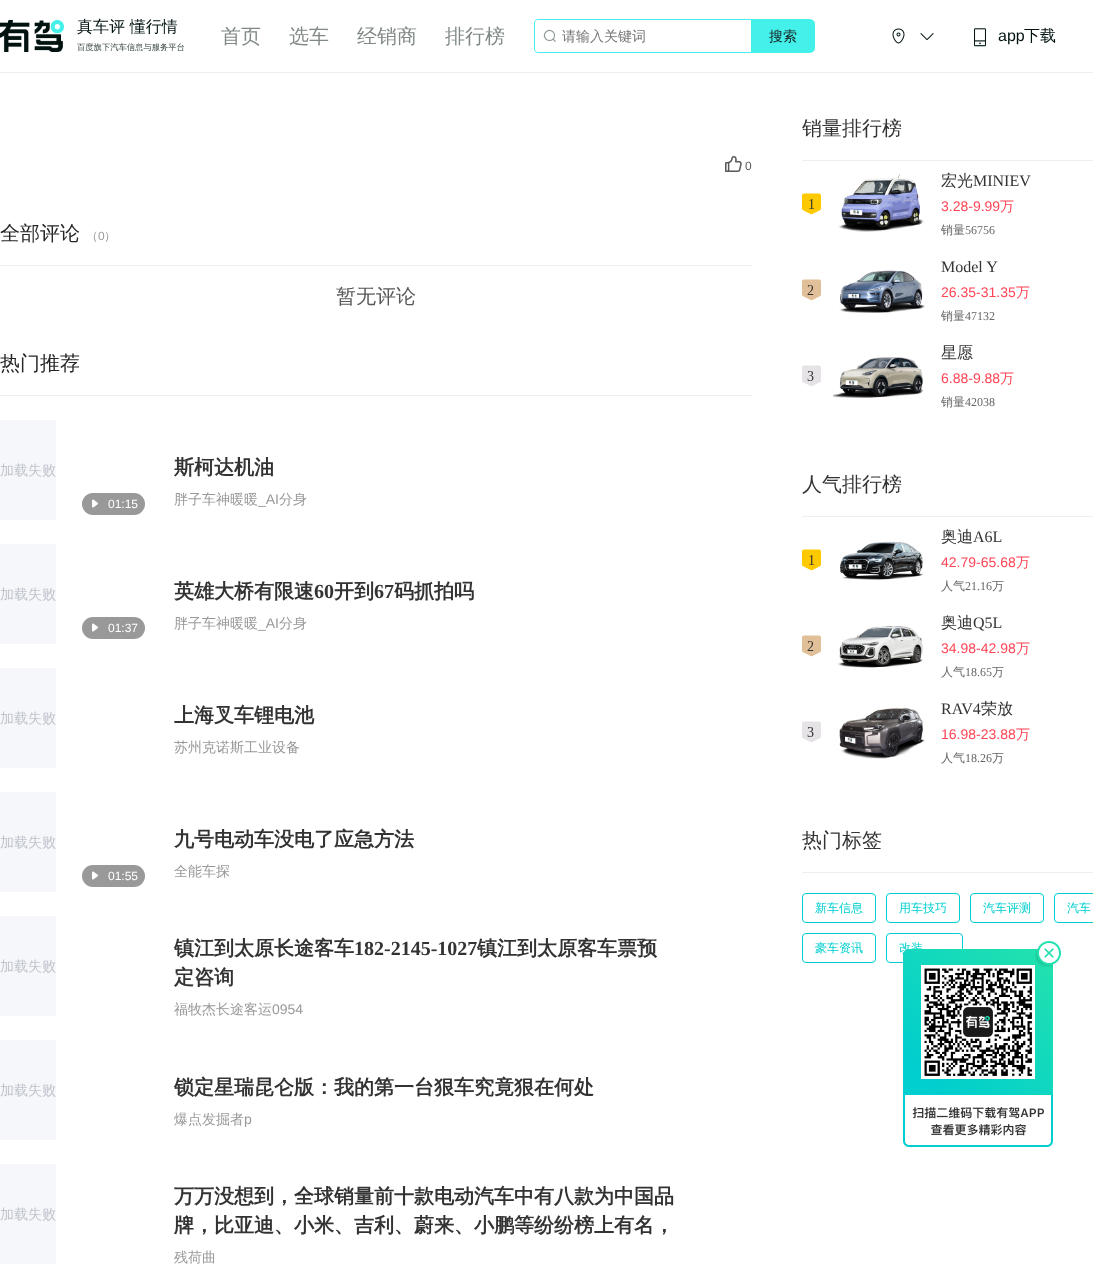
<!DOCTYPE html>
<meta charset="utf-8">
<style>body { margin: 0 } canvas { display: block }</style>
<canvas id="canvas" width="1093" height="1287"></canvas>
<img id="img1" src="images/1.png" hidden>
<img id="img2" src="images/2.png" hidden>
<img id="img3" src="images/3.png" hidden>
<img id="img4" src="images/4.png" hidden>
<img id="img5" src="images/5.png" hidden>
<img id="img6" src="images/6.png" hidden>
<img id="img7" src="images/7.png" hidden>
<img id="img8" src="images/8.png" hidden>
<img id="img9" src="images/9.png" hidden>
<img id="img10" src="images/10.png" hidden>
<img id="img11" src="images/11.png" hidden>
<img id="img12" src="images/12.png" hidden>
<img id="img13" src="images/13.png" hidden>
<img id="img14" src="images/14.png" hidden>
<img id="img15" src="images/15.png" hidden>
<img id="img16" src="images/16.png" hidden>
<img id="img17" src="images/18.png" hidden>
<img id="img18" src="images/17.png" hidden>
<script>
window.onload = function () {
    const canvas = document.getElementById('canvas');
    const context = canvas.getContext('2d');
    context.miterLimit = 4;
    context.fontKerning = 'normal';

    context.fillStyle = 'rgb(255, 255, 255)';
    context.fillRect(0, 0, 1093, 1287);
    context.fillStyle = 'rgb(238, 238, 238)';
    context.fillRect(0, 72, 1093, 1);
    context.drawImage(document.getElementById('img1'), 0, 20, 64, 32);
    context.beginPath();
    context.roundRect(534.5, 19.5, 279, 33, 3.5);
    context.strokeStyle = 'rgb(68, 240, 234)';
    context.stroke();
    context.fillStyle = 'rgb(255, 255, 255)';
    context.beginPath();
    context.roundRect(535, 20, 216, 32, [4, 0, 0, 4]);
    context.fill();
    context.drawImage(document.getElementById('img2'), 543, 29, 13, 13);
    context.fillStyle = 'rgb(68, 240, 234)';
    context.beginPath();
    context.roundRect(751, 20, 64, 32, [0, 4, 4, 0]);
    context.fill();
    context.drawImage(document.getElementById('img3'), 892, 28, 13, 16);
    context.drawImage(document.getElementById('img4'), 920, 33, 14, 8);
    context.drawImage(document.getElementById('img5'), 974, 28, 12, 19);
    context.drawImage(document.getElementById('img6'), 725, 156, 17, 16);
    context.fillStyle = 'rgb(238, 238, 238)';
    context.fillRect(0, 265, 752, 1);
    context.fillRect(0, 395, 752, 1);
    context.fillStyle = 'rgb(245, 247, 250)';
    context.fillRect(0, 420, 56, 100);
    context.fillStyle = 'rgb(153, 153, 153)';
    context.beginPath();
    context.roundRect(82, 493, 63, 22, 11);
    context.fill();
    context.drawImage(document.getElementById('img7'), 92, 499, 6, 9);
    context.fillStyle = 'rgb(245, 247, 250)';
    context.fillRect(0, 544, 56, 100);
    context.fillStyle = 'rgb(153, 153, 153)';
    context.beginPath();
    context.roundRect(82, 617, 63, 22, 11);
    context.fill();
    context.drawImage(document.getElementById('img7'), 92, 623, 6, 9);
    context.fillStyle = 'rgb(245, 247, 250)';
    context.fillRect(0, 668, 56, 100);
    context.fillRect(0, 792, 56, 100);
    context.fillStyle = 'rgb(153, 153, 153)';
    context.beginPath();
    context.roundRect(82, 865, 63, 22, 11);
    context.fill();
    context.drawImage(document.getElementById('img7'), 92, 871, 6, 9);
    context.fillStyle = 'rgb(245, 247, 250)';
    context.fillRect(0, 916, 56, 100);
    context.fillRect(0, 1040, 56, 100);
    context.fillRect(0, 1164, 56, 100);
    context.fillStyle = 'rgb(238, 238, 238)';
    context.fillRect(802, 160, 291, 1);
    context.drawImage(document.getElementById('img8'), 802, 193, 19, 22);
    context.drawImage(document.getElementById('img9'), 838, 174, 86, 58);
    context.drawImage(document.getElementById('img10'), 802, 279, 19, 22);
    context.drawImage(document.getElementById('img11'), 839, 270, 86, 43);
    context.drawImage(document.getElementById('img12'), 802, 365, 19, 22);
    context.drawImage(document.getElementById('img13'), 833, 357, 91, 41);
    context.fillRect(802, 516, 291, 1);
    context.drawImage(document.getElementById('img8'), 802, 549, 19, 22);
    context.drawImage(document.getElementById('img14'), 840, 541, 84, 39);
    context.drawImage(document.getElementById('img10'), 802, 635, 19, 22);
    context.drawImage(document.getElementById('img15'), 837, 626, 86, 42);
    context.drawImage(document.getElementById('img12'), 802, 721, 19, 22);
    context.drawImage(document.getElementById('img16'), 839, 708, 86, 51);
    context.fillRect(802, 872, 291, 1);
    context.beginPath();
    context.roundRect(802.5, 893.5, 73, 29, 3.5);
    context.strokeStyle = 'rgb(0, 206, 207)';
    context.stroke();
    context.beginPath();
    context.roundRect(886.5, 893.5, 73, 29, 3.5);
    context.stroke();
    context.beginPath();
    context.roundRect(970.5, 893.5, 73, 29, 3.5);
    context.stroke();
    context.beginPath();
    context.roundRect(1054.5, 893.5, 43, 29, 3.5);
    context.stroke();
    context.beginPath();
    context.roundRect(802.5, 933.5, 73, 29, 3.5);
    context.stroke();
    context.beginPath();
    context.roundRect(886.5, 933.5, 76, 29, 3.5);
    context.stroke();
    context.font = '500 16px WenQuanYi Zen Hei';
    context.fillStyle = 'rgb(0, 19, 17)';
    context.fillText('真车评 懂行情', 77, 32);
    context.font = '500 8.3px WenQuanYi Zen Hei';
    context.fillStyle = 'rgb(51, 66, 65)';
    context.fillText('百度旗下汽车信息与服务平台', 77, 50);
    context.font = '500 20px WenQuanYi Zen Hei';
    context.fillStyle = 'rgb(128, 137, 136)';
    context.fillText('首页', 221, 43);
    context.fillText('选车', 289, 43);
    context.fillText('经销商', 357, 43);
    context.fillText('排行榜', 445, 43);
    context.font = '500 14px WenQuanYi Zen Hei';
    context.fillStyle = 'rgb(117, 117, 117)';
    context.fillText('请输入关键词', 562, 41);
    context.fillStyle = 'rgb(21, 31, 30)';
    context.fillText('搜索', 769, 41);
    context.font = '16px Liberation Sans';
    context.fillStyle = 'rgb(0, 19, 17)';
    context.fillText('app', 998, 41);
    context.font = '500 16px WenQuanYi Zen Hei';
    context.fillText('下载', 1024, 41);
    context.font = '12px Liberation Sans';
    context.fillStyle = 'rgb(89, 89, 89)';
    context.fillText('0', 745, 170);
    context.font = '500 20px WenQuanYi Zen Hei';
    context.fillStyle = 'rgb(38, 38, 38)';
    context.fillText('全部评论', 0, 240);
    context.font = '500 12px WenQuanYi Zen Hei';
    context.fillStyle = 'rgb(153, 153, 153)';
    context.fillText('（', 86, 240);
    context.font = '12px Liberation Sans';
    context.fillText('0', 98, 240);
    context.font = '500 12px WenQuanYi Zen Hei';
    context.fillText('）', 104, 240);
    context.font = '500 20px WenQuanYi Zen Hei';
    context.fillStyle = 'rgb(89, 89, 89)';
    context.fillText('暂无评论', 336, 303);
    context.fillStyle = 'rgb(38, 38, 38)';
    context.fillText('热门推荐', 0, 370);
    context.font = '500 14px WenQuanYi Zen Hei';
    context.fillStyle = 'rgb(192, 196, 204)';
    context.fillText('加载失败', 0, 475);
    context.font = '12px Liberation Sans';
    context.fillStyle = 'rgb(255, 255, 255)';
    context.fillText('01:15', 108, 508);
    context.font = 'bold 20px WenQuanYi Zen Hei';
    context.fillStyle = 'rgb(51, 51, 51)';
    context.fillText('斯柯达机油', 174, 474);
    context.font = '500 14px WenQuanYi Zen Hei';
    context.fillStyle = 'rgb(153, 153, 153)';
    context.fillText('胖子车神暖暖', 174, 504);
    context.font = '14px Liberation Sans';
    context.fillText('_AI', 258, 504);
    context.font = '500 14px WenQuanYi Zen Hei';
    context.fillText('分身', 279, 504);
    context.fillStyle = 'rgb(192, 196, 204)';
    context.fillText('加载失败', 0, 599);
    context.font = '12px Liberation Sans';
    context.fillStyle = 'rgb(255, 255, 255)';
    context.fillText('01:37', 108, 632);
    context.font = 'bold 20px WenQuanYi Zen Hei';
    context.fillStyle = 'rgb(51, 51, 51)';
    context.fillText('英雄大桥有限速', 174, 598);
    context.font = 'bold 20px Liberation Serif';
    context.fillText('60', 314, 598);
    context.font = 'bold 20px WenQuanYi Zen Hei';
    context.fillText('开到', 334, 598);
    context.font = 'bold 20px Liberation Serif';
    context.fillText('67', 374, 598);
    context.font = 'bold 20px WenQuanYi Zen Hei';
    context.fillText('码抓拍吗', 394, 598);
    context.font = '500 14px WenQuanYi Zen Hei';
    context.fillStyle = 'rgb(153, 153, 153)';
    context.fillText('胖子车神暖暖', 174, 628);
    context.font = '14px Liberation Sans';
    context.fillText('_AI', 258, 628);
    context.font = '500 14px WenQuanYi Zen Hei';
    context.fillText('分身', 279, 628);
    context.fillStyle = 'rgb(192, 196, 204)';
    context.fillText('加载失败', 0, 723);
    context.font = 'bold 20px WenQuanYi Zen Hei';
    context.fillStyle = 'rgb(51, 51, 51)';
    context.fillText('上海叉车锂电池', 174, 722);
    context.font = '500 14px WenQuanYi Zen Hei';
    context.fillStyle = 'rgb(153, 153, 153)';
    context.fillText('苏州克诺斯工业设备', 174, 752);
    context.fillStyle = 'rgb(192, 196, 204)';
    context.fillText('加载失败', 0, 847);
    context.font = '12px Liberation Sans';
    context.fillStyle = 'rgb(255, 255, 255)';
    context.fillText('01:55', 108, 880);
    context.font = 'bold 20px WenQuanYi Zen Hei';
    context.fillStyle = 'rgb(51, 51, 51)';
    context.fillText('九号电动车没电了应急方法', 174, 846);
    context.font = '500 14px WenQuanYi Zen Hei';
    context.fillStyle = 'rgb(153, 153, 153)';
    context.fillText('全能车探', 174, 876);
    context.fillStyle = 'rgb(192, 196, 204)';
    context.fillText('加载失败', 0, 971);
    context.font = 'bold 20px WenQuanYi Zen Hei';
    context.fillStyle = 'rgb(51, 51, 51)';
    context.fillText('镇江到太原长途客车', 174, 955);
    context.font = 'bold 20px Liberation Serif';
    context.fillText('182-2145-1027', 354, 955);
    context.font = 'bold 20px WenQuanYi Zen Hei';
    context.fillText('镇江到太原客车票预', 477, 955);
    context.fillText('定咨询', 174, 984);
    context.font = '500 14px WenQuanYi Zen Hei';
    context.fillStyle = 'rgb(153, 153, 153)';
    context.fillText('福牧杰长途客运', 174, 1014);
    context.font = '14px Liberation Sans';
    context.fillText('0954', 272, 1014);
    context.font = '500 14px WenQuanYi Zen Hei';
    context.fillStyle = 'rgb(192, 196, 204)';
    context.fillText('加载失败', 0, 1095);
    context.font = 'bold 20px WenQuanYi Zen Hei';
    context.fillStyle = 'rgb(51, 51, 51)';
    context.fillText('锁定星瑞昆仑版：我的第一台狠车究竟狠在何处', 174, 1094);
    context.font = '500 14px WenQuanYi Zen Hei';
    context.fillStyle = 'rgb(153, 153, 153)';
    context.fillText('爆点发掘者', 174, 1124);
    context.font = '14px Liberation Sans';
    context.fillText('p', 244, 1124);
    context.font = '500 14px WenQuanYi Zen Hei';
    context.fillStyle = 'rgb(192, 196, 204)';
    context.fillText('加载失败', 0, 1219);
    context.font = 'bold 20px WenQuanYi Zen Hei';
    context.fillStyle = 'rgb(51, 51, 51)';
    context.fillText('万万没想到，全球销量前十款电动汽车中有八款为中国品', 174, 1203);
    context.fillText('牌，比亚迪、小米、吉利、蔚来、小鹏等纷纷榜上有名，', 174, 1232);
    context.font = '500 14px WenQuanYi Zen Hei';
    context.fillStyle = 'rgb(153, 153, 153)';
    context.fillText('残荷曲', 174, 1262);
    context.font = '500 20px WenQuanYi Zen Hei';
    context.fillStyle = 'rgb(51, 51, 51)';
    context.fillText('销量排行榜', 802, 135);
    context.font = '500 16px WenQuanYi Zen Hei';
    context.fillText('宏光', 941, 186);
    context.font = '16px Liberation Serif';
    context.fillText('MINIEV', 973, 186);
    context.font = '14px Liberation Sans';
    context.fillStyle = 'rgb(254, 68, 85)';
    context.fillText('3.28-9.99', 941, 211);
    context.font = '500 14px WenQuanYi Zen Hei';
    context.fillText('万', 1000, 211);
    context.font = '500 12px WenQuanYi Zen Hei';
    context.fillStyle = 'rgb(102, 102, 102)';
    context.fillText('销量', 941, 234);
    context.font = '12px Liberation Serif';
    context.fillText('56756', 965, 234);
    context.font = '16px Liberation Serif';
    context.fillStyle = 'rgb(51, 51, 51)';
    context.fillText('Model Y', 941, 272);
    context.font = '14px Liberation Sans';
    context.fillStyle = 'rgb(254, 68, 85)';
    context.fillText('26.35-31.35', 941, 297);
    context.font = '500 14px WenQuanYi Zen Hei';
    context.fillText('万', 1016, 297);
    context.font = '500 12px WenQuanYi Zen Hei';
    context.fillStyle = 'rgb(102, 102, 102)';
    context.fillText('销量', 941, 320);
    context.font = '12px Liberation Serif';
    context.fillText('47132', 965, 320);
    context.font = '500 16px WenQuanYi Zen Hei';
    context.fillStyle = 'rgb(51, 51, 51)';
    context.fillText('星愿', 941, 358);
    context.font = '14px Liberation Sans';
    context.fillStyle = 'rgb(254, 68, 85)';
    context.fillText('6.88-9.88', 941, 383);
    context.font = '500 14px WenQuanYi Zen Hei';
    context.fillText('万', 1000, 383);
    context.font = '500 12px WenQuanYi Zen Hei';
    context.fillStyle = 'rgb(102, 102, 102)';
    context.fillText('销量', 941, 406);
    context.font = '12px Liberation Serif';
    context.fillText('42038', 965, 406);
    context.font = '500 20px WenQuanYi Zen Hei';
    context.fillStyle = 'rgb(51, 51, 51)';
    context.fillText('人气排行榜', 802, 491);
    context.font = '500 16px WenQuanYi Zen Hei';
    context.fillText('奥迪', 941, 542);
    context.font = '16px Liberation Serif';
    context.fillText('A6L', 973, 542);
    context.font = '14px Liberation Sans';
    context.fillStyle = 'rgb(254, 68, 85)';
    context.fillText('42.79-65.68', 941, 567);
    context.font = '500 14px WenQuanYi Zen Hei';
    context.fillText('万', 1016, 567);
    context.font = '500 12px WenQuanYi Zen Hei';
    context.fillStyle = 'rgb(102, 102, 102)';
    context.fillText('人气', 941, 590);
    context.font = '12px Liberation Serif';
    context.fillText('21.16', 965, 590);
    context.font = '500 12px WenQuanYi Zen Hei';
    context.fillText('万', 992, 590);
    context.font = '500 16px WenQuanYi Zen Hei';
    context.fillStyle = 'rgb(51, 51, 51)';
    context.fillText('奥迪', 941, 628);
    context.font = '16px Liberation Serif';
    context.fillText('Q5L', 973, 628);
    context.font = '14px Liberation Sans';
    context.fillStyle = 'rgb(254, 68, 85)';
    context.fillText('34.98-42.98', 941, 653);
    context.font = '500 14px WenQuanYi Zen Hei';
    context.fillText('万', 1016, 653);
    context.font = '500 12px WenQuanYi Zen Hei';
    context.fillStyle = 'rgb(102, 102, 102)';
    context.fillText('人气', 941, 676);
    context.font = '12px Liberation Serif';
    context.fillText('18.65', 965, 676);
    context.font = '500 12px WenQuanYi Zen Hei';
    context.fillText('万', 992, 676);
    context.font = '16px Liberation Serif';
    context.fillStyle = 'rgb(51, 51, 51)';
    context.fillText('RAV4', 941, 714);
    context.font = '500 16px WenQuanYi Zen Hei';
    context.fillText('荣放', 981, 714);
    context.font = '14px Liberation Sans';
    context.fillStyle = 'rgb(254, 68, 85)';
    context.fillText('16.98-23.88', 941, 739);
    context.font = '500 14px WenQuanYi Zen Hei';
    context.fillText('万', 1016, 739);
    context.font = '500 12px WenQuanYi Zen Hei';
    context.fillStyle = 'rgb(102, 102, 102)';
    context.fillText('人气', 941, 762);
    context.font = '12px Liberation Serif';
    context.fillText('18.26', 965, 762);
    context.font = '500 12px WenQuanYi Zen Hei';
    context.fillText('万', 992, 762);
    context.font = '500 20px WenQuanYi Zen Hei';
    context.fillStyle = 'rgb(51, 51, 51)';
    context.fillText('热门标签', 802, 847);
    context.font = '500 12px WenQuanYi Zen Hei';
    context.fillStyle = 'rgb(0, 206, 207)';
    context.fillText('新车信息', 815, 912);
    context.fillText('用车技巧', 899, 912);
    context.fillText('汽车评测', 983, 912);
    context.fillText('汽车', 1067, 912);
    context.fillText('豪车资讯', 815, 952);
    context.fillText('改装', 899, 952);
    context.drawImage(document.getElementById('img17'), 903, 949, 150, 198);
    context.drawImage(document.getElementById('img18'), 1035, 941, 26, 26);
};
</script>
